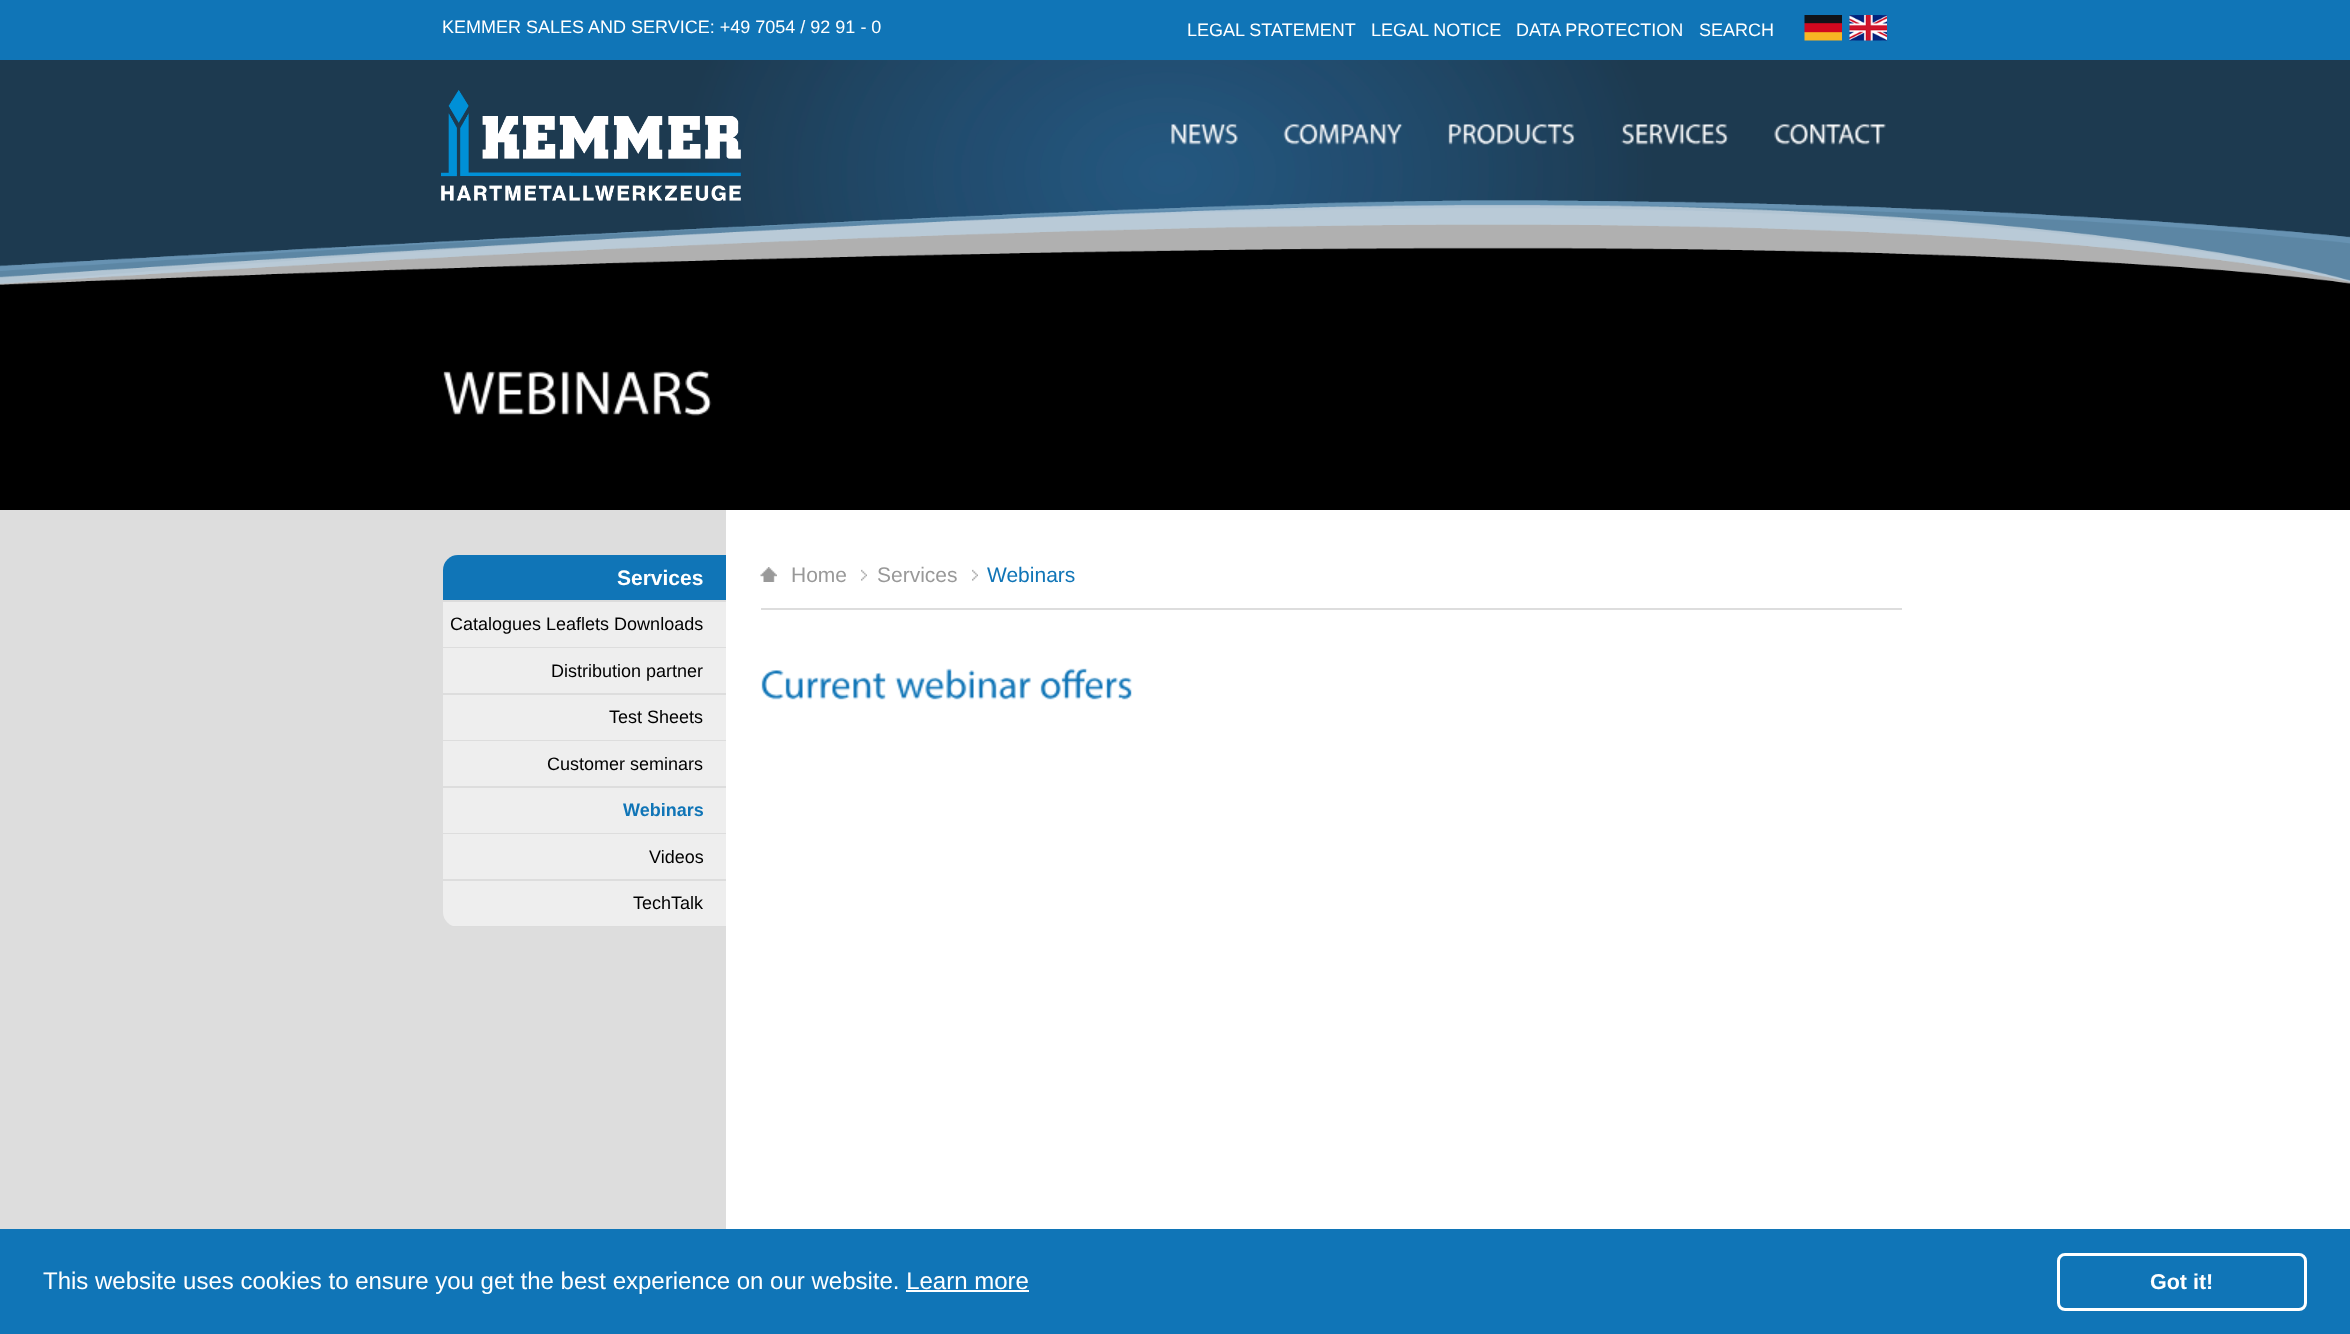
<!DOCTYPE html>
<meta charset="utf-8">
<style>body { margin: 0 } canvas { display: block }</style>
<canvas id="canvas" width="2350" height="1334"></canvas>
<img id="img1" src="images/1.png" hidden>
<img id="img2" src="images/2.png" hidden>
<img id="img3" src="images/3.png" hidden>
<img id="img4" src="images/4.png" hidden>
<img id="img5" src="images/5.png" hidden>
<img id="img6" src="images/6.png" hidden>
<img id="img7" src="images/7.png" hidden>
<img id="img8" src="images/8.png" hidden>
<img id="img9" src="images/9.png" hidden>
<img id="img10" src="images/10.png" hidden>
<img id="img11" src="images/11.png" hidden>
<img id="img12" src="images/12.png" hidden>
<img id="img13" src="images/13.png" hidden>
<img id="img14" src="images/14.png" hidden>
<img id="img15" src="images/15.png" hidden>
<script>
window.onload = function () {
    const canvas = document.getElementById('canvas');
    const context = canvas.getContext('2d');
    context.miterLimit = 4;
    context.fontKerning = 'normal';

    context.fillStyle = 'rgb(255, 255, 255)';
    context.fillRect(0, 0, 2350, 1334);
    context.fillStyle = 'rgb(221, 221, 221)';
    context.fillRect(0, 510, 726, 719);
    context.fillStyle = 'rgb(16, 117, 183)';
    context.fillRect(0, 0, 2350, 60);
    context.drawImage(document.getElementById('img1'), 1804, 15, 38, 26);
    context.drawImage(document.getElementById('img2'), 1849, 15, 38, 26);
    context.fillStyle = 'rgb(0, 0, 0)';
    context.fillRect(0, 60, 2350, 450);
    context.drawImage(document.getElementById('img3'), 443, 370, 269, 46);
    context.drawImage(document.getElementById('img4'), 0, 60, 2350, 225);
    context.drawImage(document.getElementById('img5'), 441, 90, 300, 111);
    context.drawImage(document.getElementById('img6'), 1171, 124, 67, 21);
    context.drawImage(document.getElementById('img7'), 1283, 124, 120, 21);
    context.drawImage(document.getElementById('img8'), 1448, 124, 127, 21);
    context.drawImage(document.getElementById('img9'), 1621, 124, 108, 21);
    context.drawImage(document.getElementById('img10'), 1774, 124, 112, 21);
    context.fillStyle = 'rgb(16, 117, 183)';
    context.beginPath();
    context.roundRect(443, 555, 283, 47, [15, 0, 0, 0]);
    context.fill();
    context.fillStyle = 'rgb(220, 220, 220)';
    context.fillRect(443, 600, 283, 2);
    context.fillStyle = 'rgb(238, 238, 238)';
    context.fillRect(443, 602, 283, 45);
    context.fillRect(443, 648, 283, 45);
    context.fillRect(443, 695, 283, 45);
    context.fillRect(443, 741, 283, 45);
    context.fillRect(443, 788, 283, 45);
    context.fillRect(443, 834, 283, 45);
    context.beginPath();
    context.roundRect(443, 881, 283, 46, [0, 0, 0, 15]);
    context.fill();
    context.fillStyle = 'rgb(220, 220, 220)';
    context.fillRect(450, 926, 276, 1);
    context.fillStyle = 'rgb(221, 221, 221)';
    context.fillRect(761, 608, 1141, 2);
    context.drawImage(document.getElementById('img11'), 760, 567, 17, 15);
    context.drawImage(document.getElementById('img12'), 861, 569, 6, 12);
    context.drawImage(document.getElementById('img12'), 972, 569, 6, 12);
    context.drawImage(document.getElementById('img13'), 761, 670, 125, 30);
    context.drawImage(document.getElementById('img14'), 895, 668, 136, 32);
    context.drawImage(document.getElementById('img15'), 1040, 668, 92, 32);
    context.fillStyle = 'rgb(16, 117, 183)';
    context.fillRect(0, 1229, 2350, 105);
    context.fillStyle = 'rgb(255, 255, 255)';
    context.fillRect(906, 1290, 123, 2);
    context.beginPath();
    context.roundRect(2058.5, 1254.5, 247, 55, 6.5);
    context.strokeStyle = 'rgb(255, 255, 255)';
    context.lineWidth = 3;
    context.stroke();
    context.font = '18px Liberation Sans';
    context.fillText('KEMMER SALES AND SERVICE: +49 7054 / 92 91 - 0', 442, 33);
    context.fillText('LEGAL STATEMENT', 1187, 36);
    context.fillText('LEGAL NOTICE', 1371, 36);
    context.fillText('DATA PROTECTION', 1516, 36);
    context.fillText('SEARCH', 1699, 36);
    context.font = 'bold 21px Liberation Sans';
    context.fillText('Services', 617, 585);
    context.font = '18px Liberation Sans';
    context.fillStyle = 'rgb(0, 0, 0)';
    context.fillText('Catalogues Leaflets Downloads', 450, 630);
    context.fillText('Distribution partner', 551, 677);
    context.fillText('Test Sheets', 609, 723);
    context.fillText('Customer seminars', 547, 770);
    context.font = 'bold 18px Liberation Sans';
    context.fillStyle = 'rgb(16, 117, 183)';
    context.fillText('Webinars', 623, 816);
    context.font = '18px Liberation Sans';
    context.fillStyle = 'rgb(0, 0, 0)';
    context.fillText('Videos', 649, 863);
    context.fillText('TechTalk', 633, 909);
    context.font = '21px Liberation Sans';
    context.fillStyle = 'rgb(153, 153, 153)';
    context.fillText('Home', 791, 582);
    context.fillText('Services', 877, 582);
    context.fillStyle = 'rgb(16, 117, 183)';
    context.fillText('Webinars', 987, 582);
    context.font = '24px Liberation Sans';
    context.fillStyle = 'rgb(255, 255, 255)';
    context.fillText('This website uses cookies to ensure you get the best experience on our website. Learn more', 43, 1289);
    context.font = 'bold 21.5px Liberation Sans';
    context.fillText('Got it!', 2150, 1289);
};
</script>
